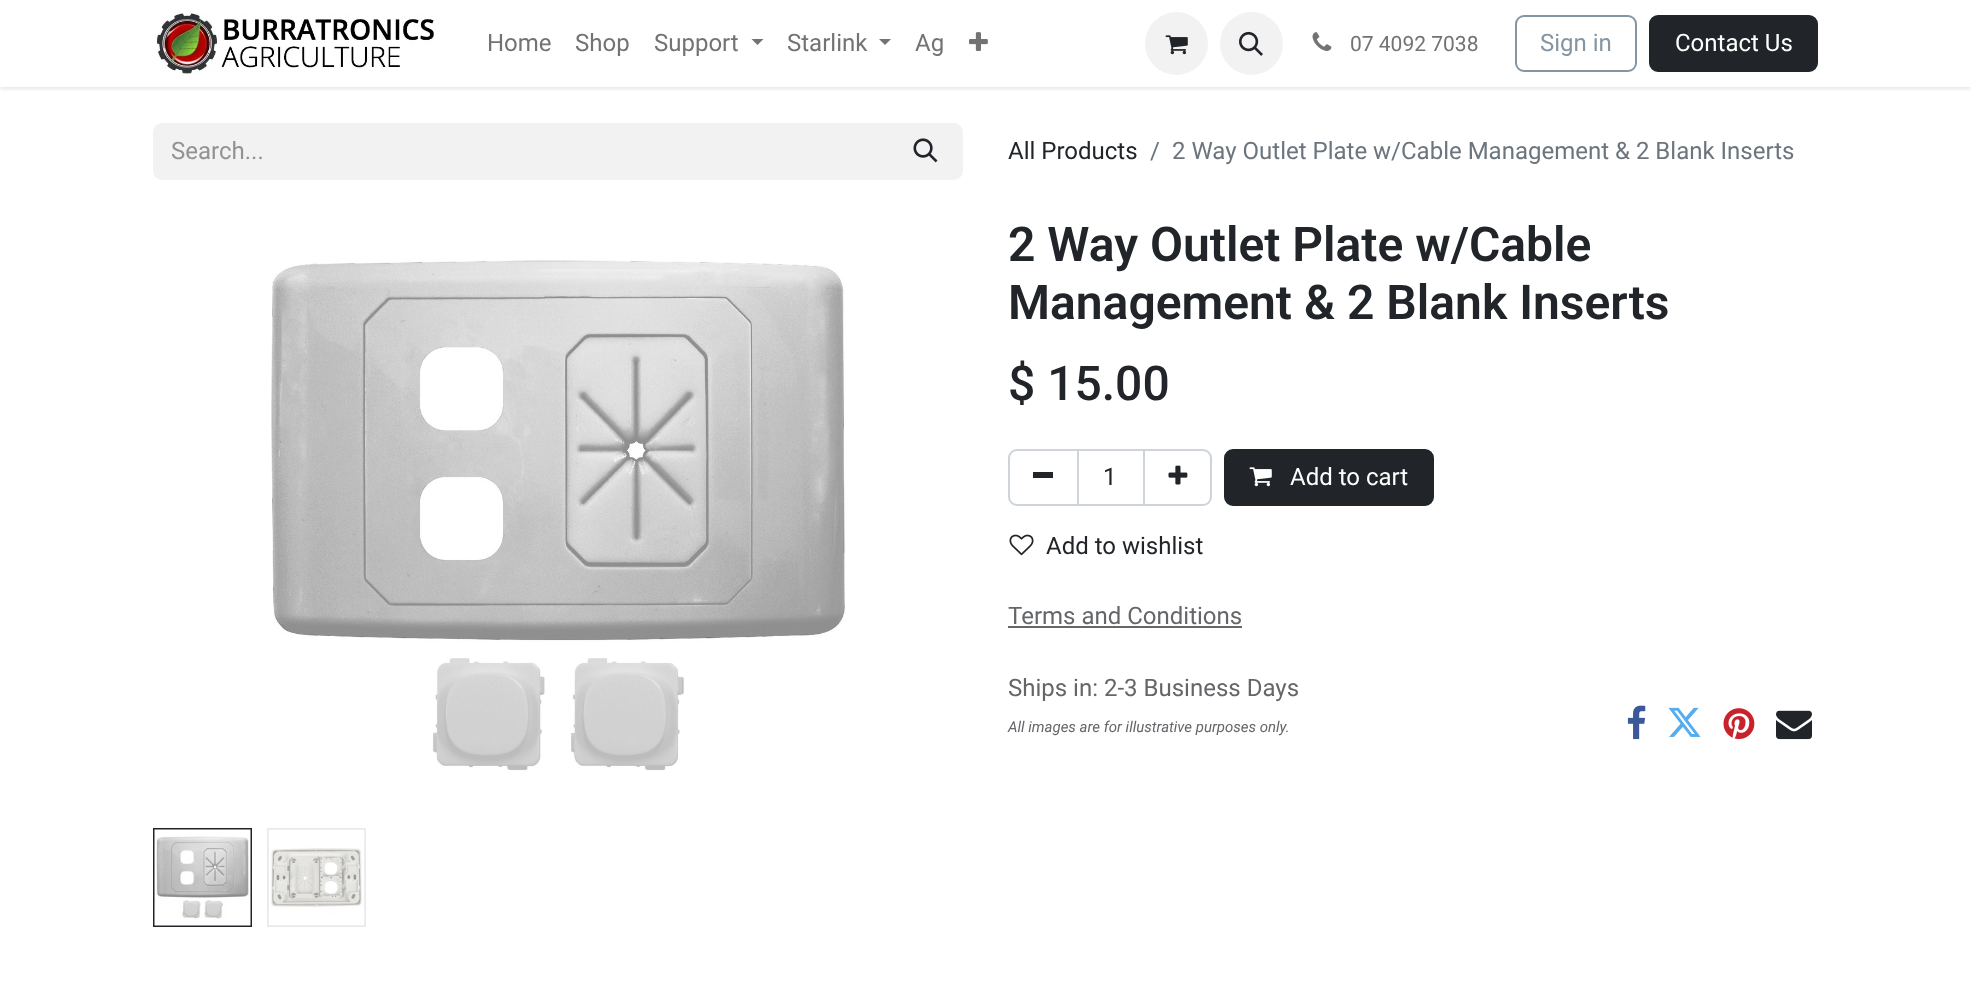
<!DOCTYPE html>
<meta charset="utf-8">
<style>body { margin: 0 } canvas { display: block }</style>
<canvas id="canvas" width="1971" height="993"></canvas>
<img id="img1" src="images/1.png" hidden>
<img id="img2" src="images/2.png" hidden>
<img id="img3" src="images/3.png" hidden>
<img id="img4" src="images/4.png" hidden>
<img id="img5" src="images/5.png" hidden>
<img id="img6" src="images/6.png" hidden>
<img id="img7" src="images/7.png" hidden>
<img id="img8" src="images/8.png" hidden>
<img id="img9" src="images/9.png" hidden>
<img id="img10" src="images/10.png" hidden>
<img id="img11" src="images/11.png" hidden>
<img id="img12" src="images/12.png" hidden>
<img id="img13" src="images/13.png" hidden>
<img id="img14" src="images/14.png" hidden>
<img id="img15" src="images/15.png" hidden>
<img id="img16" src="images/16.png" hidden>
<script>
window.onload = function () {
    const canvas = document.getElementById('canvas');
    const context = canvas.getContext('2d');
    context.miterLimit = 4;
    context.fontKerning = 'normal';

    context.fillStyle = 'rgb(255, 255, 255)';
    context.fillRect(0, 0, 1971, 993);
    context.save();
    context.beginPath();
    context.rect(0, 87, 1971, 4);
    context.clip();
    context.fillStyle = 'rgba(0, 0, 0, 0.1)';
    context.filter = 'blur(2px)';
    context.beginPath();
    context.rect(0, 2, 1971, 87);
    context.fill();
    context.filter = 'none';
    context.restore();
    context.drawImage(document.getElementById('img1'), 155, 13, 280, 61);
    context.fillStyle = 'rgb(115, 115, 115)';
    context.beginPath();
    context.moveTo(751.5, 39);
    context.lineTo(763.5, 39);
    context.lineTo(757.5, 45);
    context.closePath();
    context.fill();
    context.beginPath();
    context.moveTo(879, 39);
    context.lineTo(891, 39);
    context.lineTo(885, 45);
    context.closePath();
    context.fill();
    context.drawImage(document.getElementById('img2'), 969, 32, 19, 19);
    context.fillStyle = 'rgb(242, 242, 242)';
    context.beginPath();
    context.arc(1176.5, 43.5, 31.5, 0, 2 * Math.PI);
    context.fill();
    context.drawImage(document.getElementById('img3'), 1165, 35, 23, 20);
    context.beginPath();
    context.arc(1251.5, 43.5, 31.5, 0, 2 * Math.PI);
    context.fill();
    context.drawImage(document.getElementById('img4'), 1239, 31, 24, 25);
    context.drawImage(document.getElementById('img5'), 1312, 32, 20, 19);
    context.beginPath();
    context.roundRect(1516, 16, 120, 55, 8);
    context.strokeStyle = 'rgb(133, 149, 162)';
    context.lineWidth = 2;
    context.stroke();
    context.fillStyle = 'rgb(33, 37, 41)';
    context.beginPath();
    context.roundRect(1650, 16, 167, 55, 8);
    context.fill();
    context.strokeStyle = 'rgb(33, 37, 41)';
    context.stroke();
    context.fillStyle = 'rgb(243, 242, 242)';
    context.beginPath();
    context.roundRect(153, 123, 737, 57, [9, 0, 0, 9]);
    context.fill();
    context.beginPath();
    context.roundRect(889, 124, 73, 55, [0, 8, 8, 0]);
    context.fill();
    context.strokeStyle = 'rgb(243, 242, 242)';
    context.stroke();
    context.drawImage(document.getElementById('img6'), 913, 138, 25, 25);
    context.drawImage(document.getElementById('img7'), 271, 260, 575, 511);
    context.strokeStyle = 'rgb(33, 37, 41)';
    context.strokeRect(154, 829, 97, 97);
    context.drawImage(document.getElementById('img8'), 154, 829, 97, 97);
    context.strokeStyle = 'rgb(231, 234, 237)';
    context.strokeRect(268, 829, 97, 97);
    context.drawImage(document.getElementById('img9'), 268, 829, 97, 97);
    context.strokeStyle = 'rgb(206, 212, 218)';
    context.strokeRect(1078, 450, 66, 55);
    context.beginPath();
    context.roundRect(1009, 450, 69, 55, [8, 0, 0, 8]);
    context.stroke();
    context.fillStyle = 'rgb(33, 37, 41)';
    context.fillRect(1033, 472, 20, 6);
    context.beginPath();
    context.roundRect(1144, 450, 67, 55, [0, 8, 8, 0]);
    context.stroke();
    context.drawImage(document.getElementById('img10'), 1168, 465, 20, 20);
    context.beginPath();
    context.roundRect(1225, 450, 208, 55, 8);
    context.fill();
    context.strokeStyle = 'rgb(33, 37, 41)';
    context.stroke();
    context.drawImage(document.getElementById('img11'), 1249, 467, 23, 20);
    context.drawImage(document.getElementById('img12'), 1009, 534, 25, 22);
    context.fillStyle = 'rgb(100, 102, 105)';
    context.fillRect(1008, 626, 234, 2);
    context.drawImage(document.getElementById('img13'), 1627, 705, 19, 35);
    context.drawImage(document.getElementById('img14'), 1668, 707, 33, 30);
    context.drawImage(document.getElementById('img15'), 1723, 708, 32, 32);
    context.drawImage(document.getElementById('img16'), 1776, 710, 36, 30);
    context.font = '24px Roboto';
    context.fillStyle = 'rgb(115, 115, 115)';
    context.fillText('Home', 487, 51);
    context.fillText('Shop', 575, 51);
    context.fillText('Support', 654, 51);
    context.fillText('Starlink', 787, 51);
    context.fillText('Ag', 915, 51);
    context.font = '21px Roboto';
    context.fillText('07 4092 7038', 1350, 51);
    context.font = '24px Roboto';
    context.fillStyle = 'rgb(133, 149, 162)';
    context.fillText('Sign in', 1540, 51);
    context.fillStyle = 'rgb(255, 255, 255)';
    context.fillText('Contact Us', 1675, 51);
    context.fillStyle = 'rgb(144, 146, 148)';
    context.fillText('Search...', 171, 159);
    context.fillStyle = 'rgb(33, 37, 41)';
    context.fillText('All Products', 1008, 159);
    context.fillStyle = 'rgb(108, 117, 125)';
    context.fillText('/', 1150, 159);
    context.fillText('2 Way Outlet Plate w/Cable Management & 2 Blank Inserts', 1172, 159);
    context.font = '600 48px Roboto';
    context.fillStyle = 'rgb(33, 37, 41)';
    context.fillText('2 Way Outlet Plate w/Cable', 1008, 261);
    context.fillText('Management & 2 Blank Inserts', 1008, 319);
    context.font = '500 48px Roboto';
    context.fillText('$ 15.00', 1008, 400);
    context.font = '24px Roboto';
    context.fillText('1', 1103, 485);
    context.fillStyle = 'rgb(255, 255, 255)';
    context.fillText('Add to cart', 1290, 485);
    context.fillStyle = 'rgb(33, 37, 41)';
    context.fillText('Add to wishlist', 1046, 554);
    context.fillStyle = 'rgb(100, 102, 105)';
    context.fillText('Terms and Conditions', 1008, 624);
    context.fillText('Ships in: 2-3 Business Days', 1008, 696);
    context.font = 'italic 15px Roboto';
    context.fillText('All images are for illustrative purposes only.', 1008, 732);
};
</script>
